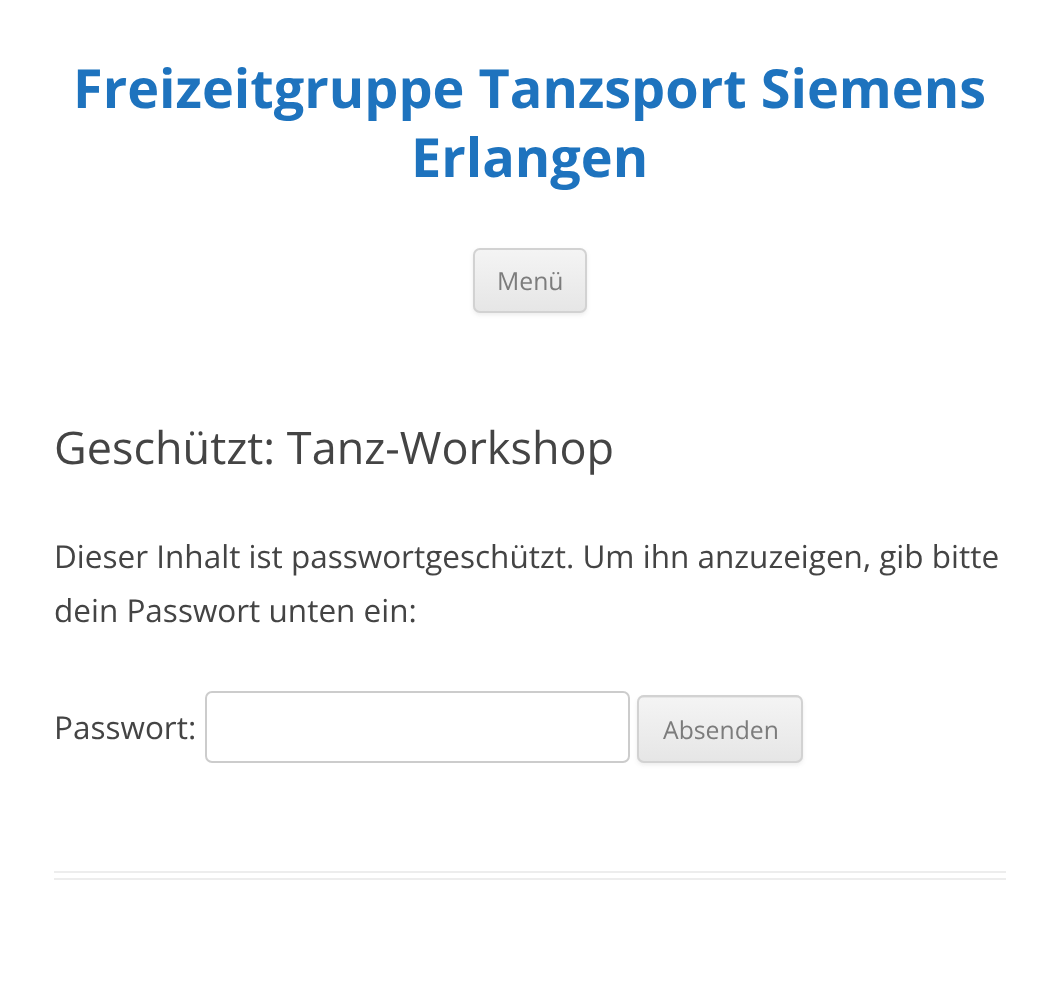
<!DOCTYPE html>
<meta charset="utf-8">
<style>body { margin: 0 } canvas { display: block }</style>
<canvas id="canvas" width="1058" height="999"></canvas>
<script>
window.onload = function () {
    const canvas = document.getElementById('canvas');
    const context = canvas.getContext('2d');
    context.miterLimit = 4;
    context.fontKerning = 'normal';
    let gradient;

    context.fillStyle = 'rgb(255, 255, 255)';
    context.fillRect(0, 0, 1058, 999);
    context.fillStyle = 'rgba(64, 64, 64, 0.1)';
    context.filter = 'blur(2px)';
    context.beginPath();
    context.roundRect(473, 250, 114, 65, 7);
    context.fill();
    context.filter = 'none';
    context.save();
    context.beginPath();
    context.roundRect(473, 248, 114, 65, 7);
    context.clip();
    gradient = context.createLinearGradient(530, 250, 530, 311);
    gradient.addColorStop(0, 'rgb(244, 244, 244)');
    gradient.addColorStop(1, 'rgb(230, 230, 230)');
    context.fillStyle = gradient;
    context.fillRect(473, 250, 114, 61);
    context.restore();
    context.beginPath();
    context.roundRect(474, 249, 112, 63, 6);
    context.strokeStyle = 'rgb(210, 210, 210)';
    context.lineWidth = 2;
    context.stroke();
    context.fillStyle = 'rgb(237, 237, 237)';
    context.fillRect(54, 871, 952, 2);
    context.fillRect(54, 878, 952, 2);
    context.beginPath();
    context.roundRect(206, 692, 423, 70, 6);
    context.strokeStyle = 'rgb(204, 204, 204)';
    context.stroke();
    context.fillStyle = 'rgba(64, 64, 64, 0.1)';
    context.filter = 'blur(2px)';
    context.beginPath();
    context.roundRect(637, 698, 166, 67, 7);
    context.fill();
    context.filter = 'none';
    context.fillStyle = 'rgb(230, 230, 230)';
    context.beginPath();
    context.roundRect(637, 695, 166, 68, 7);
    context.fill();
    context.save();
    context.beginPath();
    context.roundRect(637, 695, 166, 68, 7);
    context.clip();
    gradient = context.createLinearGradient(720, 698, 720, 761);
    gradient.addColorStop(0, 'rgb(244, 244, 244)');
    gradient.addColorStop(1, 'rgb(230, 230, 230)');
    context.fillStyle = gradient;
    context.fillRect(637, 698, 166, 63);
    context.restore();
    context.beginPath();
    context.roundRect(638, 696, 164, 66, 6);
    context.strokeStyle = 'rgb(210, 210, 210)';
    context.stroke();
    context.font = 'bold 54px Open Sans';
    context.fillStyle = 'rgb(30, 115, 190)';
    context.fillText('Freizeitgruppe Tanzsport Siemens', 73, 108);
    context.fillText('Erlangen', 411, 177);
    context.font = '24.75px Open Sans';
    context.fillStyle = 'rgb(124, 124, 124)';
    context.fillText('Menü', 497, 290);
    context.font = '45px Open Sans';
    context.fillStyle = 'rgb(68, 68, 68)';
    context.fillText('Geschützt: Tanz-Workshop', 54, 464);
    context.font = '31.5px Open Sans';
    context.fillText('Dieser Inhalt ist passwortgeschützt. Um ihn anzuzeigen, gib bitte', 54, 568);
    context.fillText('dein Passwort unten ein:', 54, 622);
    context.fillText('Passwort:', 54, 739);
    context.font = '24.75px Open Sans';
    context.fillStyle = 'rgb(124, 124, 124)';
    context.fillText('Absenden', 663, 739);
};
</script>
